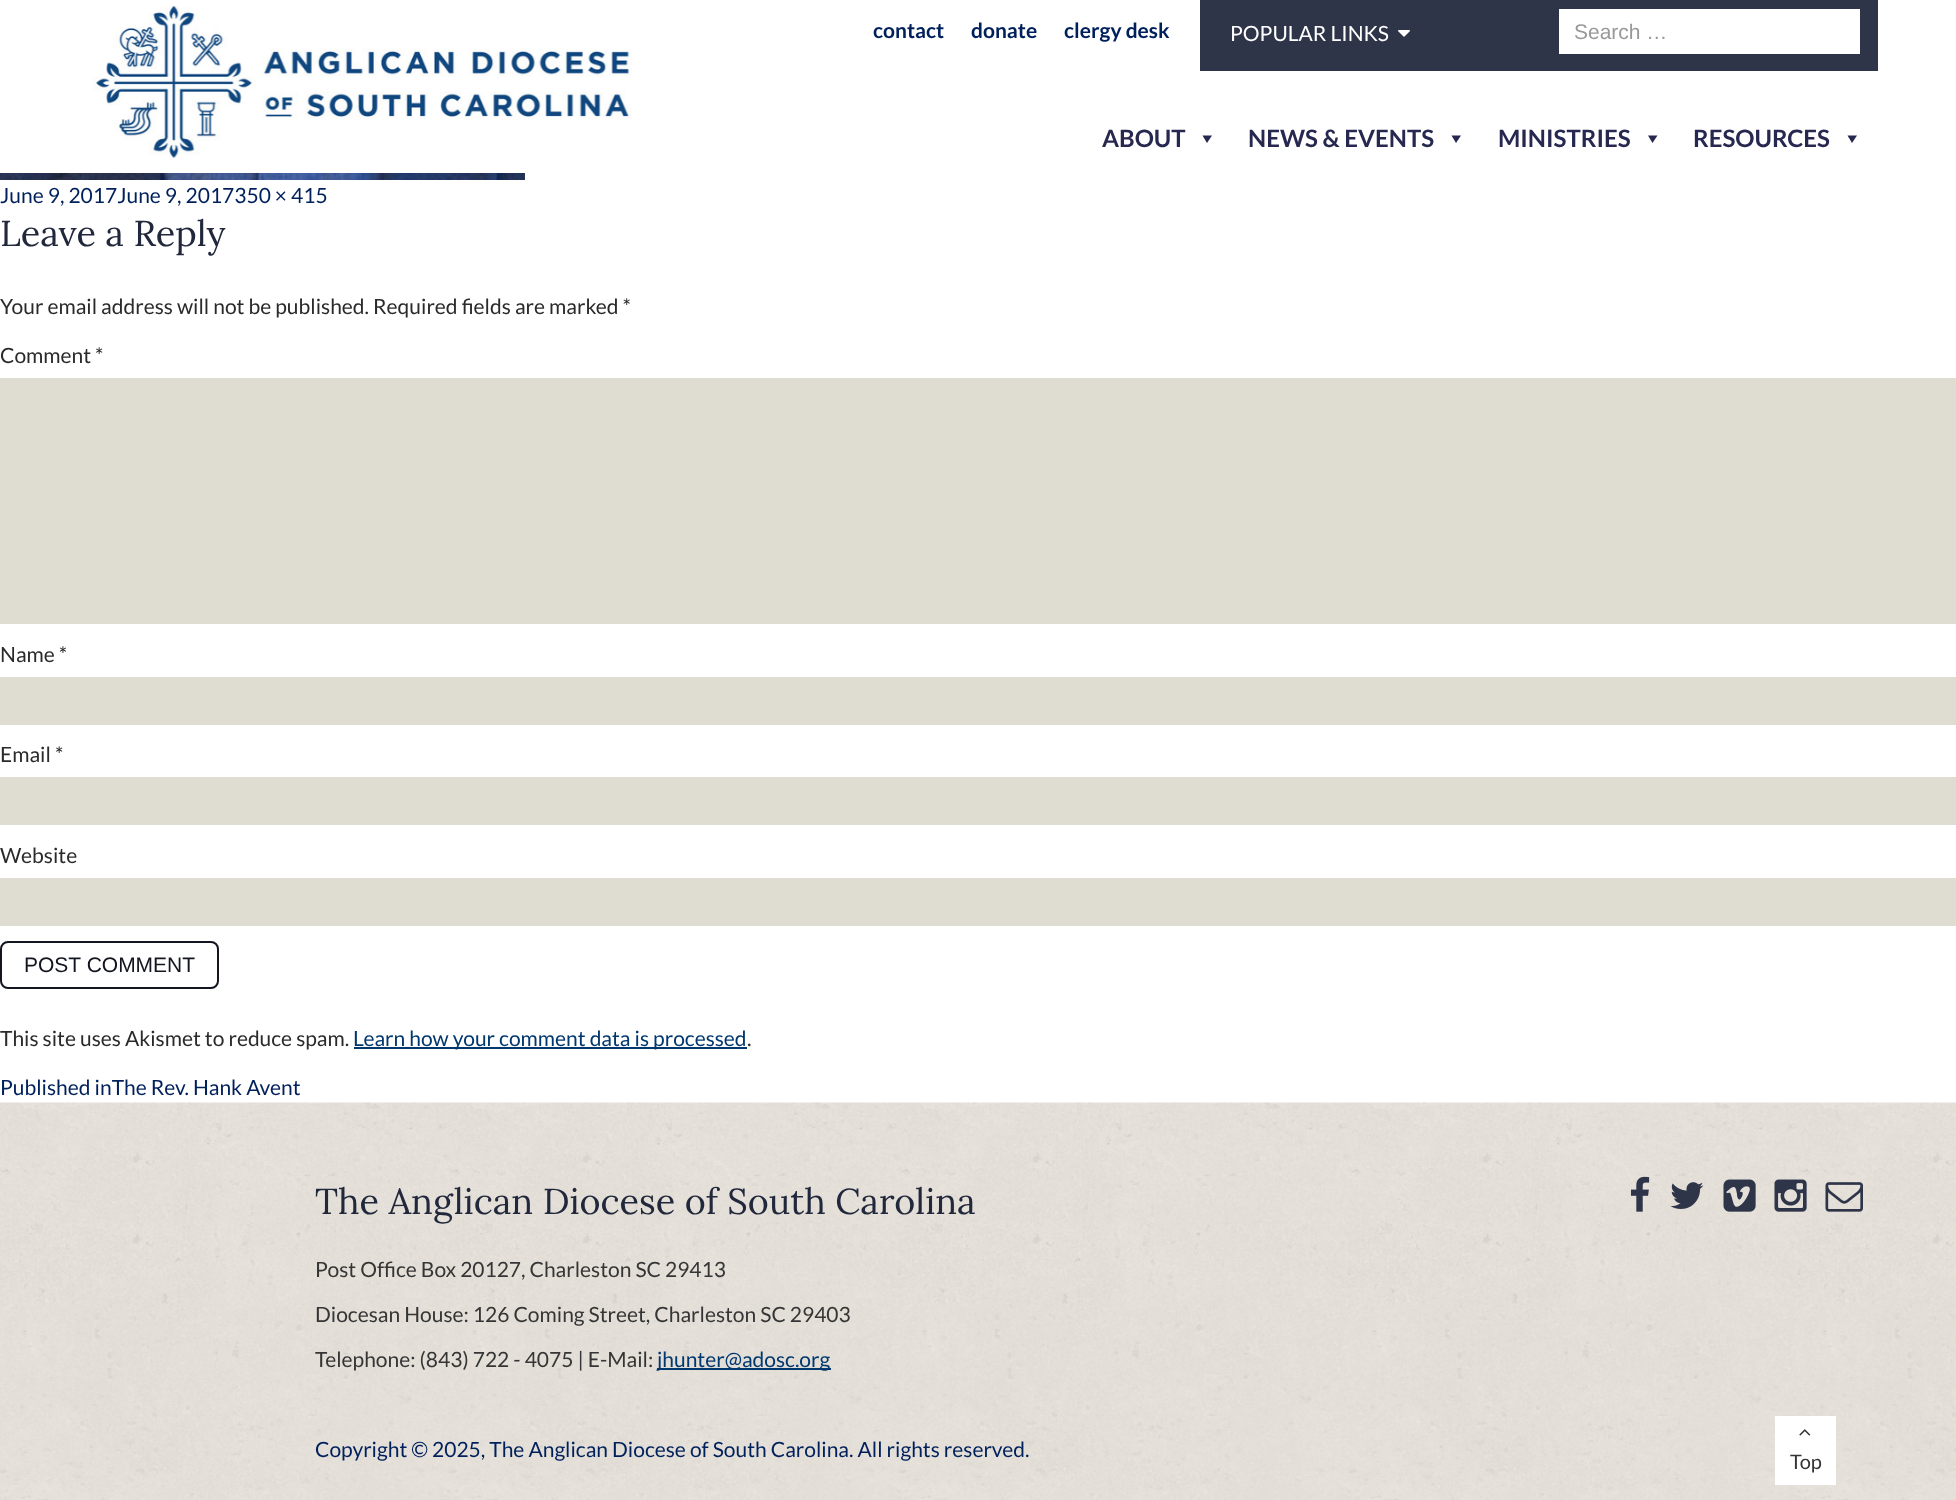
<!DOCTYPE html>
<meta charset="utf-8">
<style>body { margin: 0 } canvas { display: block }</style>
<canvas id="canvas" width="1956" height="1500"></canvas>
<img id="img1" src="images/1.png" hidden>
<img id="img2" src="images/2.png" hidden>
<img id="img3" src="images/3.png" hidden>
<img id="img4" src="images/4.png" hidden>
<img id="img5" src="images/5.png" hidden>
<img id="img6" src="images/6.png" hidden>
<img id="img7" src="images/7.png" hidden>
<img id="img8" src="images/8.png" hidden>
<img id="img9" src="images/9.png" hidden>
<img id="img10" src="images/10.png" hidden>
<script>
window.onload = function () {
    const canvas = document.getElementById('canvas');
    const context = canvas.getContext('2d');
    context.miterLimit = 4;
    context.fontKerning = 'normal';

    context.fillStyle = 'rgb(255, 255, 255)';
    context.fillRect(0, 0, 1956, 1500);
    context.drawImage(document.getElementById('img1'), 92, 6, 541, 152);
    context.fillStyle = 'rgb(46, 53, 73)';
    context.fillRect(1200, 0, 678, 71);
    context.drawImage(document.getElementById('img2'), 1398, 30, 12, 7);
    context.fillStyle = 'rgb(255, 255, 255)';
    context.fillRect(1559, 9, 301, 45);
    context.fillStyle = 'rgb(38, 40, 79)';
    context.beginPath();
    context.moveTo(1212, 135.5);
    context.lineTo(1207, 143);
    context.lineTo(1202.5, 135.5);
    context.closePath();
    context.fill();
    context.beginPath();
    context.moveTo(1461, 135.5);
    context.lineTo(1456, 143);
    context.lineTo(1451.5, 135.5);
    context.closePath();
    context.fill();
    context.beginPath();
    context.moveTo(1657.5, 135.5);
    context.lineTo(1652.5, 143);
    context.lineTo(1648, 135.5);
    context.closePath();
    context.fill();
    context.beginPath();
    context.moveTo(1857, 135.5);
    context.lineTo(1852, 143);
    context.lineTo(1847.5, 135.5);
    context.closePath();
    context.fill();
    context.drawImage(document.getElementById('img3'), 0, 173, 525, 7);
    context.fillStyle = 'rgb(223, 221, 210)';
    context.fillRect(0, 378, 1956, 246);
    context.fillRect(0, 677, 1956, 48);
    context.fillRect(0, 777, 1956, 48);
    context.fillRect(0, 878, 1956, 48);
    context.beginPath();
    context.roundRect(1, 942, 217, 46, 7);
    context.strokeStyle = 'rgb(19, 22, 33)';
    context.lineWidth = 2;
    context.stroke();
    context.fillStyle = 'rgb(0, 55, 111)';
    context.fillRect(354, 1047, 393, 2);
    context.drawImage(document.getElementById('img4'), 0, 1102, 1956, 398);
    context.fillRect(657, 1368, 174, 2);
    context.drawImage(document.getElementById('img5'), 1631, 1176, 19, 36);
    context.drawImage(document.getElementById('img6'), 1670, 1182, 34, 27);
    context.drawImage(document.getElementById('img7'), 1723, 1179, 33, 33);
    context.drawImage(document.getElementById('img8'), 1774, 1179, 33, 33);
    context.drawImage(document.getElementById('img9'), 1825, 1182, 38, 30);
    context.fillStyle = 'rgb(255, 255, 255)';
    context.fillRect(1775, 1416, 61, 69);
    context.drawImage(document.getElementById('img10'), 1799, 1429, 12, 7);
    context.font = 'bold 21px Lato';
    context.fillStyle = 'rgb(0, 32, 92)';
    context.fillText('contact', 873, 38);
    context.fillText('donate', 971, 38);
    context.fillText('clergy desk', 1064, 38);
    context.font = '21px Lato';
    context.fillStyle = 'rgb(255, 255, 255)';
    context.fillText('POPULAR LINKS', 1230, 41);
    context.font = '21px Liberation Sans';
    context.fillStyle = 'rgb(153, 153, 153)';
    context.fillText('Search …', 1574, 39);
    context.font = 'bold 24px Lato';
    context.fillStyle = 'rgb(38, 40, 79)';
    context.fillText('ABOUT', 1102, 147);
    context.fillText('NEWS & EVENTS', 1248, 147);
    context.fillText('MINISTRIES', 1498, 147);
    context.fillText('RESOURCES', 1693, 147);
    context.font = '21px Lato';
    context.fillStyle = 'rgb(0, 32, 92)';
    context.fillText('June 9, 2017June 9, 2017350 × 415', 0, 203);
    context.font = '36px Lora';
    context.fillStyle = 'rgb(34, 40, 60)';
    context.fillText('Leave a Reply', 0, 246);
    context.font = '21px Lato';
    context.fillStyle = 'rgb(42, 42, 42)';
    context.fillText('Your email address will not be published. Required fields are marked *', 0, 314);
    context.fillText('Comment *', 0, 363);
    context.fillText('Name *', 0, 662);
    context.fillText('Email *', 0, 762);
    context.fillText('Website', 0, 863);
    context.font = '21px Liberation Sans';
    context.fillStyle = 'rgb(19, 22, 33)';
    context.fillText('POST COMMENT', 24, 972);
    context.font = '21px Lato';
    context.fillStyle = 'rgb(42, 42, 42)';
    context.fillText('This site uses Akismet to reduce spam.', 0, 1046);
    context.fillStyle = 'rgb(0, 55, 111)';
    context.fillText('Learn how your comment data is processed', 353, 1046);
    context.fillStyle = 'rgb(42, 42, 42)';
    context.fillText('.', 747, 1046);
    context.fillStyle = 'rgb(0, 32, 92)';
    context.fillText('Published inThe Rev. Hank Avent', 0, 1095);
    context.font = '36px Lora';
    context.fillStyle = 'rgb(34, 40, 60)';
    context.fillText('The Anglican Diocese of South Carolina', 315, 1214);
    context.font = '21px Lato';
    context.fillStyle = 'rgb(53, 53, 53)';
    context.fillText('Post Office Box 20127, Charleston SC 29413', 315, 1277);
    context.fillText('Diocesan House: 126 Coming Street, Charleston SC 29403', 315, 1322);
    context.fillText('Telephone: (843) 722 - 4075 | E-Mail:', 315, 1367);
    context.fillStyle = 'rgb(0, 55, 111)';
    context.fillText('jhunter@adosc.org', 657, 1367);
    context.fillStyle = 'rgb(0, 32, 92)';
    context.fillText('Copyright © 2025, The Anglican Diocese of South Carolina. All rights reserved.', 315, 1457);
    context.font = '20px Lato';
    context.fillStyle = 'rgb(53, 53, 53)';
    context.fillText('Top', 1790, 1469);
};
</script>
